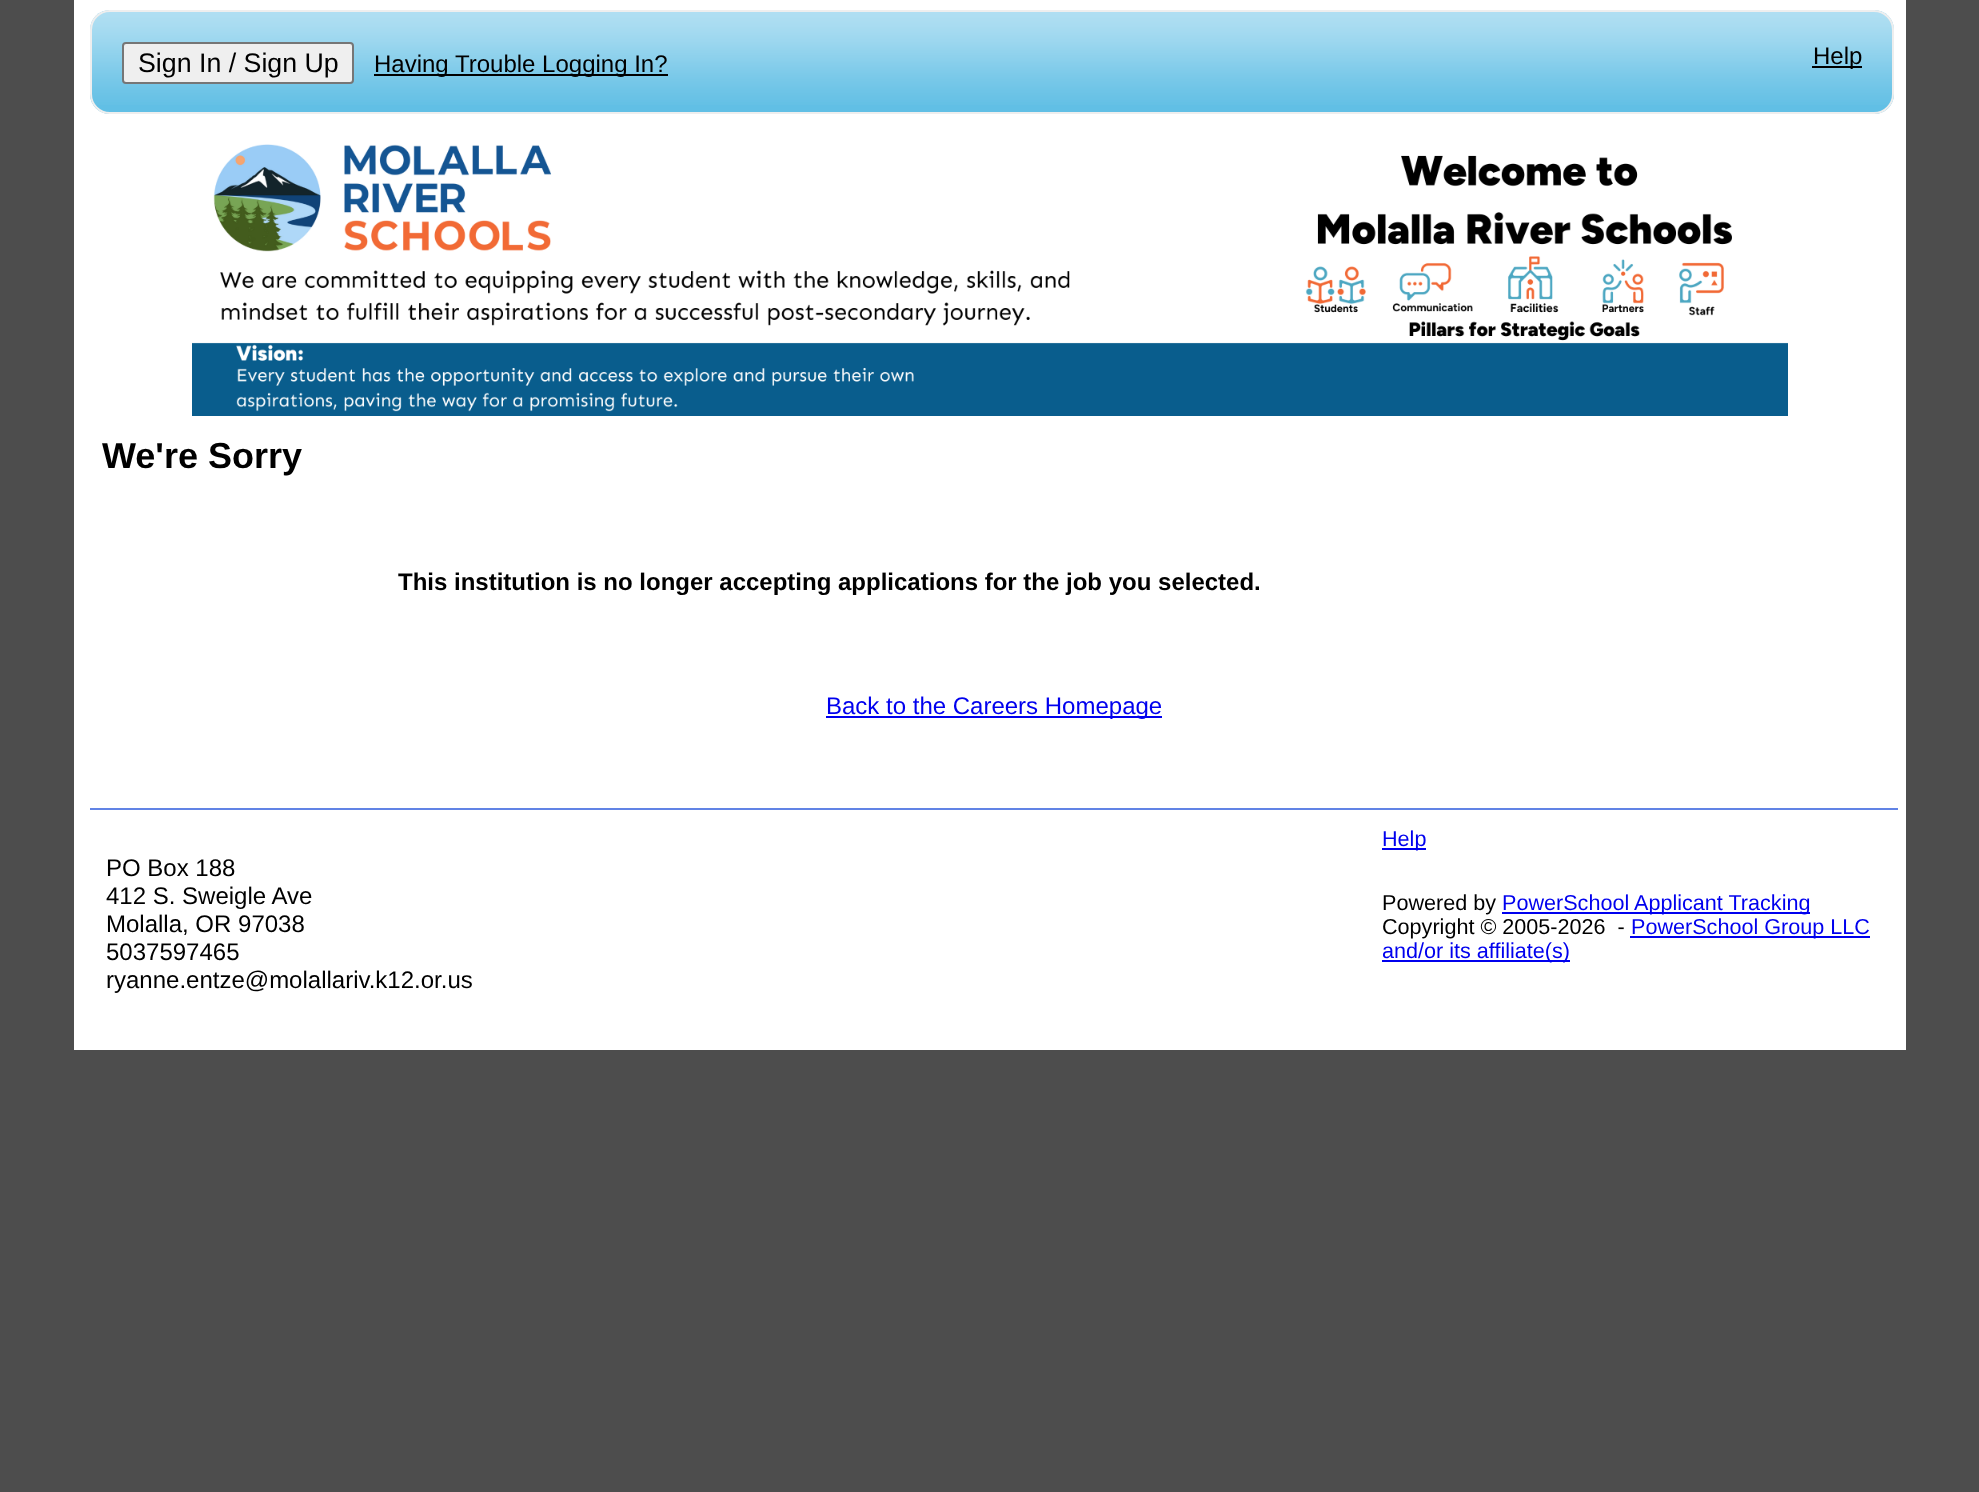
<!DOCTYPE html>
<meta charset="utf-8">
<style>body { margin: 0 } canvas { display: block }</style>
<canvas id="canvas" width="1979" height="1492"></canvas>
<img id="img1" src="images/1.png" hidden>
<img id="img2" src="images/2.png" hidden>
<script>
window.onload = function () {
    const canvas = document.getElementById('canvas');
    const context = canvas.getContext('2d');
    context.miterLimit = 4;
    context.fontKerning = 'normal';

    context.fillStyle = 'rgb(77, 77, 77)';
    context.fillRect(0, 0, 1979, 1492);
    context.fillStyle = 'rgb(255, 255, 255)';
    context.fillRect(74, 0, 1832, 1050);
    context.fillStyle = 'rgb(97, 191, 229)';
    context.beginPath();
    context.roundRect(90, 10, 1804, 104, 20);
    context.fill();
    context.drawImage(document.getElementById('img1'), 90, 12, 1804, 93);
    context.beginPath();
    context.roundRect(91, 11, 1802, 102, 19);
    context.strokeStyle = 'rgb(238, 238, 238)';
    context.lineWidth = 2;
    context.stroke();
    context.fillStyle = 'rgb(239, 239, 239)';
    context.beginPath();
    context.roundRect(123, 43, 230, 40, 3);
    context.fill();
    context.strokeStyle = 'rgb(118, 118, 118)';
    context.stroke();
    context.fillStyle = 'rgb(0, 0, 0)';
    context.fillRect(374, 74, 294, 2);
    context.fillRect(1812, 66, 50, 2);
    context.drawImage(document.getElementById('img2'), 192, 144, 1596, 272);
    context.fillStyle = 'rgb(0, 0, 238)';
    context.fillRect(826, 716, 336, 2);
    context.fillStyle = 'rgb(97, 131, 229)';
    context.fillRect(90, 808, 1808, 2);
    context.fillStyle = 'rgb(0, 0, 238)';
    context.fillRect(1382, 848, 44, 2);
    context.fillRect(1502, 912, 308, 2);
    context.fillRect(1630, 936, 240, 2);
    context.fillRect(1382, 960, 188, 2);
    context.font = '26.75px Liberation Sans';
    context.fillStyle = 'rgb(0, 0, 0)';
    context.fillText('Sign In / Sign Up', 138, 72);
    context.font = '24px Liberation Sans';
    context.fillText('Having Trouble Logging In?', 374, 72);
    context.fillText('Help', 1813, 64);
    context.font = 'bold 36px Liberation Sans';
    context.fillText('We\'re Sorry', 102, 468);
    context.font = 'bold 24px Liberation Sans';
    context.fillText('This institution is no longer accepting applications for the job you selected.', 398, 590);
    context.font = '24px Liberation Sans';
    context.fillStyle = 'rgb(0, 0, 238)';
    context.fillText('Back to the Careers Homepage', 826, 714);
    context.fillStyle = 'rgb(0, 0, 0)';
    context.fillText('PO Box 188', 106, 876);
    context.fillText('412 S. Sweigle Ave', 106, 904);
    context.fillText('Molalla, OR 97038', 106, 932);
    context.fillText('5037597465', 106, 960);
    context.fillText('ryanne.entze@molallariv.k12.or.us', 106, 988);
    context.font = '21.6px Liberation Sans';
    context.fillStyle = 'rgb(0, 0, 238)';
    context.fillText('Help', 1382, 846);
    context.fillStyle = 'rgb(0, 0, 0)';
    context.fillText('Powered by', 1382, 910);
    context.fillStyle = 'rgb(0, 0, 238)';
    context.fillText('PowerSchool Applicant Tracking', 1502, 910);
    context.fillStyle = 'rgb(0, 0, 0)';
    context.fillText('Copyright © 2005-2026  -', 1382, 934);
    context.fillStyle = 'rgb(0, 0, 238)';
    context.fillText('PowerSchool Group LLC', 1631, 934);
    context.fillText('and/or its affiliate(s)', 1382, 958);
};
</script>
